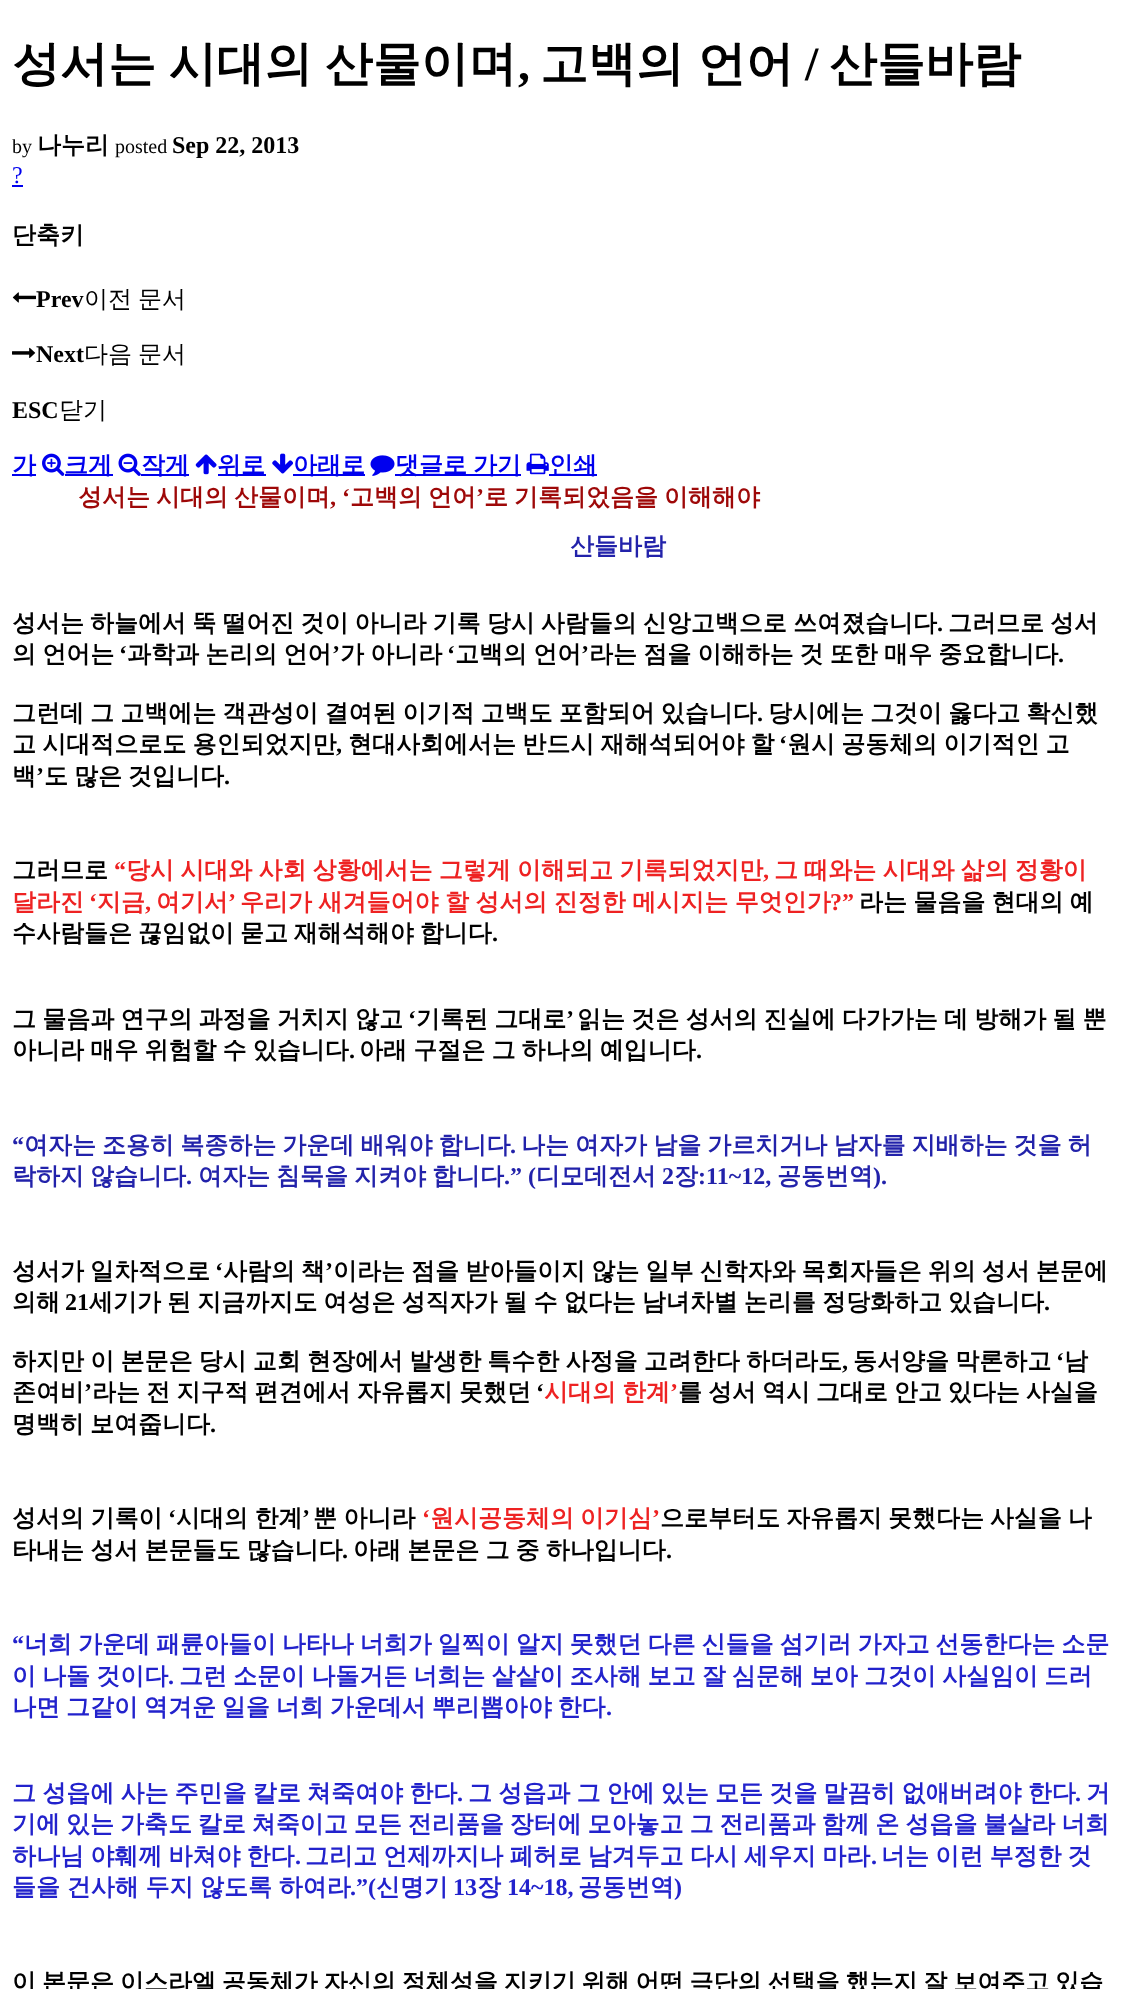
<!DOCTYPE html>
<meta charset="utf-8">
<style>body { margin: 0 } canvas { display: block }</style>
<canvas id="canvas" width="1123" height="1989"></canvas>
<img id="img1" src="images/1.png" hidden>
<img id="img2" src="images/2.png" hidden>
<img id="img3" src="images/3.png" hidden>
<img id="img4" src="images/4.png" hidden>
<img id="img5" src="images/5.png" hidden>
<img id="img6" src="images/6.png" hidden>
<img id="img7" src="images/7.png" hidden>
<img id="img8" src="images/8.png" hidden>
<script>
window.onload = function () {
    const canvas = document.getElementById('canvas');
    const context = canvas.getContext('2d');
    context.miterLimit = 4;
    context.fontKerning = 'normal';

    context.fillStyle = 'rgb(255, 255, 255)';
    context.fillRect(0, 0, 1123, 1989);
    context.fillStyle = 'rgb(0, 0, 238)';
    context.fillRect(12, 185, 11, 2);
    context.drawImage(document.getElementById('img1'), 12, 292, 24, 11);
    context.drawImage(document.getElementById('img2'), 12, 347, 24, 11);
    context.fillRect(12, 474, 24, 2);
    context.drawImage(document.getElementById('img3'), 42, 453, 23, 23);
    context.fillRect(65, 474, 48, 2);
    context.drawImage(document.getElementById('img4'), 118, 453, 23, 23);
    context.fillRect(141, 474, 48, 2);
    context.drawImage(document.getElementById('img5'), 195, 454, 22, 21);
    context.fillRect(218, 474, 48, 2);
    context.drawImage(document.getElementById('img6'), 272, 453, 21, 21);
    context.fillRect(293, 474, 72, 2);
    context.drawImage(document.getElementById('img7'), 370, 455, 25, 21);
    context.fillRect(395, 474, 126, 2);
    context.drawImage(document.getElementById('img8'), 526, 453, 23, 22);
    context.fillRect(549, 474, 48, 2);
    context.wordSpacing = '-2px';
    context.font = 'bold 48px WenQuanYi Zen Hei';
    context.fillStyle = 'rgb(0, 0, 0)';
    context.fillText('성서는 시대의 산물이며', 12, 80);
    context.wordSpacing = '0px';
    context.font = 'bold 48px Liberation Serif';
    context.fillText(',', 518, 80);
    context.wordSpacing = '-0.75px';
    context.font = 'bold 48px WenQuanYi Zen Hei';
    context.fillText('고백의 언어', 540, 80);
    context.wordSpacing = '0px';
    context.font = 'bold 48px Liberation Serif';
    context.fillText('/', 805, 80);
    context.font = 'bold 48px WenQuanYi Zen Hei';
    context.fillText('산들바람', 829, 80);
    context.font = '20px Liberation Serif';
    context.fillText('by', 12, 153);
    context.font = 'bold 24px WenQuanYi Zen Hei';
    context.fillText('나누리', 37, 153);
    context.font = '20px Liberation Serif';
    context.fillText('posted', 115, 153);
    context.font = 'bold 24px Liberation Serif';
    context.fillText('Sep 22, 2013', 172, 153);
    context.font = '24px Liberation Serif';
    context.fillStyle = 'rgb(0, 0, 238)';
    context.fillText('?', 12, 183);
    context.font = 'bold 24px WenQuanYi Zen Hei';
    context.fillStyle = 'rgb(0, 0, 0)';
    context.fillText('단축키', 12, 243);
    context.font = 'bold 24px Liberation Serif';
    context.fillText('Prev', 36, 307);
    context.wordSpacing = '-1.25px';
    context.font = '500 24px WenQuanYi Zen Hei';
    context.fillText('이전 문서', 84, 307);
    context.wordSpacing = '0px';
    context.font = 'bold 24px Liberation Serif';
    context.fillText('Next', 36, 362);
    context.wordSpacing = '-1.25px';
    context.font = '500 24px WenQuanYi Zen Hei';
    context.fillText('다음 문서', 84, 362);
    context.wordSpacing = '0px';
    context.font = 'bold 24px Liberation Serif';
    context.fillText('ESC', 12, 418);
    context.font = '500 24px WenQuanYi Zen Hei';
    context.fillText('닫기', 59, 418);
    context.font = 'bold 24px WenQuanYi Zen Hei';
    context.fillStyle = 'rgb(0, 0, 238)';
    context.fillText('가', 12, 473);
    context.fillText('크게', 64, 473);
    context.fillText('작게', 141, 473);
    context.fillText('위로', 217, 473);
    context.fillText('아래로', 293, 473);
    context.wordSpacing = '-1.25px';
    context.fillText('댓글로 가기', 395, 473);
    context.wordSpacing = '0px';
    context.fillText('인쇄', 549, 473);
    context.fillStyle = 'rgb(158, 8, 8)';
    context.fillText('성서는', 78, 505);
    context.fillText('시대의', 156, 505);
    context.fillText('산물이며', 234, 505);
    context.font = 'bold 24px Liberation Serif';
    context.fillText(', ‘', 330, 505);
    context.font = 'bold 24px WenQuanYi Zen Hei';
    context.fillText('고백의', 350, 505);
    context.fillText('언어', 428, 505);
    context.font = 'bold 24px Liberation Serif';
    context.fillText('’', 476, 505);
    context.font = 'bold 24px WenQuanYi Zen Hei';
    context.fillText('로', 484, 505);
    context.fillText('기록되었음을', 514, 505);
    context.fillText('이해해야', 664, 505);
    context.fillStyle = 'rgb(34, 34, 170)';
    context.fillText('산들바람', 570, 554);
    context.wordSpacing = '-1.1px';
    context.fillStyle = 'rgb(0, 0, 0)';
    context.fillText('성서는 하늘에서 뚝 떨어진 것이 아니라 기록 당시 사람들의 신앙고백으로 쓰여졌습니다', 12, 631);
    context.wordSpacing = '0px';
    context.font = 'bold 24px Liberation Serif';
    context.fillText('.', 937, 631);
    context.wordSpacing = '-1.1px';
    context.font = 'bold 24px WenQuanYi Zen Hei';
    context.fillText('그러므로 성서', 948, 631);
    context.wordSpacing = '-1px';
    context.fillText('의 언어는', 12, 662);
    context.wordSpacing = '0px';
    context.font = 'bold 24px Liberation Serif';
    context.fillText('‘', 119, 662);
    context.wordSpacing = '-1px';
    context.font = 'bold 24px WenQuanYi Zen Hei';
    context.fillText('과학과 논리의 언어', 127, 662);
    context.wordSpacing = '0px';
    context.font = 'bold 24px Liberation Serif';
    context.fillText('’', 332, 662);
    context.wordSpacing = '-1px';
    context.font = 'bold 24px WenQuanYi Zen Hei';
    context.fillText('가 아니라', 340, 662);
    context.wordSpacing = '0px';
    context.font = 'bold 24px Liberation Serif';
    context.fillText('‘', 447, 662);
    context.wordSpacing = '-1px';
    context.font = 'bold 24px WenQuanYi Zen Hei';
    context.fillText('고백의 언어', 455, 662);
    context.wordSpacing = '0px';
    context.font = 'bold 24px Liberation Serif';
    context.fillText('’', 581, 662);
    context.wordSpacing = '-1px';
    context.font = 'bold 24px WenQuanYi Zen Hei';
    context.fillText('라는 점을 이해하는 것 또한 매우 중요합니다', 589, 662);
    context.wordSpacing = '0px';
    context.font = 'bold 24px Liberation Serif';
    context.fillText('.', 1058, 662);
    context.wordSpacing = '-1.1px';
    context.font = 'bold 24px WenQuanYi Zen Hei';
    context.fillText('그런데 그 고백에는 객관성이 결여된 이기적 고백도 포함되어 있습니다', 12, 721);
    context.wordSpacing = '0px';
    context.font = 'bold 24px Liberation Serif';
    context.fillText('.', 757, 721);
    context.wordSpacing = '-1.1px';
    context.font = 'bold 24px WenQuanYi Zen Hei';
    context.fillText('당시에는 그것이 옳다고 확신했', 768, 721);
    context.wordSpacing = '-1px';
    context.fillText('고 시대적으로도 용인되었지만', 12, 752);
    context.fillText('현대사회에서는 반드시 재해석되어야 할', 348, 752);
    context.wordSpacing = '0px';
    context.font = 'bold 24px Liberation Serif';
    context.fillText('‘', 779, 752);
    context.wordSpacing = '-1px';
    context.font = 'bold 24px WenQuanYi Zen Hei';
    context.fillText('원시 공동체의 이기적인 고', 787, 752);
    context.wordSpacing = '0px';
    context.font = 'bold 24px Liberation Serif';
    context.fillText(',', 336, 752);
    context.font = 'bold 24px WenQuanYi Zen Hei';
    context.fillText('백', 12, 784);
    context.font = 'bold 24px Liberation Serif';
    context.fillText('’', 36, 784);
    context.wordSpacing = '-1.25px';
    context.font = 'bold 24px WenQuanYi Zen Hei';
    context.fillText('도 많은 것입니다', 44, 784);
    context.wordSpacing = '0px';
    context.font = 'bold 24px Liberation Serif';
    context.fillText('.', 224, 784);
    context.font = 'bold 24px WenQuanYi Zen Hei';
    context.fillText('그러므로', 12, 878);
    context.font = 'bold 24px Liberation Serif';
    context.fillStyle = 'rgb(238, 34, 34)';
    context.fillText('“', 114, 878);
    context.wordSpacing = '-1px';
    context.font = 'bold 24px WenQuanYi Zen Hei';
    context.fillText('당시 시대와 사회 상황에서는 그렇게 이해되고 기록되었지만', 126, 878);
    context.fillText('그 때와는 시대와 삶의 정황이', 774, 878);
    context.wordSpacing = '0px';
    context.font = 'bold 24px Liberation Serif';
    context.fillText(',', 763, 878);
    context.font = 'bold 24px WenQuanYi Zen Hei';
    context.fillText('달라진', 12, 910);
    context.font = 'bold 24px Liberation Serif';
    context.fillText('‘', 89, 910);
    context.font = 'bold 24px WenQuanYi Zen Hei';
    context.fillText('지금', 97, 910);
    context.font = 'bold 24px Liberation Serif';
    context.fillText(',', 145, 910);
    context.font = 'bold 24px WenQuanYi Zen Hei';
    context.fillText('여기서', 156, 910);
    context.font = 'bold 24px Liberation Serif';
    context.fillText('’', 228, 910);
    context.wordSpacing = '-0.75px';
    context.font = 'bold 24px WenQuanYi Zen Hei';
    context.fillText('우리가 새겨들어야 할 성서의 진정한 메시지는 무엇인가', 240, 910);
    context.wordSpacing = '0px';
    context.font = 'bold 24px Liberation Serif';
    context.fillText('?”', 830, 910);
    context.wordSpacing = '-1px';
    context.font = 'bold 24px WenQuanYi Zen Hei';
    context.fillStyle = 'rgb(0, 0, 0)';
    context.fillText('라는 물음을 현대의 예', 859, 910);
    context.wordSpacing = '-1.25px';
    context.fillText('수사람들은 끊임없이 묻고 재해석해야 합니다', 12, 941);
    context.wordSpacing = '0px';
    context.font = 'bold 24px Liberation Serif';
    context.fillText('.', 492, 941);
    context.wordSpacing = '-1px';
    context.font = 'bold 24px WenQuanYi Zen Hei';
    context.fillText('그 물음과 연구의 과정을 거치지 않고', 12, 1027);
    context.wordSpacing = '0px';
    context.font = 'bold 24px Liberation Serif';
    context.fillText('‘', 408, 1027);
    context.wordSpacing = '-1px';
    context.font = 'bold 24px WenQuanYi Zen Hei';
    context.fillText('기록된 그대로', 416, 1027);
    context.wordSpacing = '0px';
    context.font = 'bold 24px Liberation Serif';
    context.fillText('’', 566, 1027);
    context.wordSpacing = '-1px';
    context.font = 'bold 24px WenQuanYi Zen Hei';
    context.fillText('읽는 것은 성서의 진실에 다가가는 데 방해가 될 뿐', 577, 1027);
    context.fillText('아니라 매우 위험할 수 있습니다', 12, 1058);
    context.wordSpacing = '0px';
    context.font = 'bold 24px Liberation Serif';
    context.fillText('.', 349, 1058);
    context.wordSpacing = '-1px';
    context.font = 'bold 24px WenQuanYi Zen Hei';
    context.fillText('아래 구절은 그 하나의 예입니다', 359, 1058);
    context.wordSpacing = '0px';
    context.font = 'bold 24px Liberation Serif';
    context.fillText('.', 696, 1058);
    context.fillStyle = 'rgb(34, 34, 170)';
    context.fillText('“', 12, 1153);
    context.wordSpacing = '-1.1px';
    context.font = 'bold 24px WenQuanYi Zen Hei';
    context.fillText('여자는 조용히 복종하는 가운데 배워야 합니다', 24, 1153);
    context.fillText('나는 여자가 남을 가르치거나 남자를 지배하는 것을 허', 521, 1153);
    context.wordSpacing = '0px';
    context.font = 'bold 24px Liberation Serif';
    context.fillText('.', 510, 1153);
    context.font = 'bold 24px WenQuanYi Zen Hei';
    context.fillText('락하지', 12, 1184);
    context.fillText('않습니다', 90, 1184);
    context.font = 'bold 24px Liberation Serif';
    context.fillText('.', 186, 1184);
    context.font = 'bold 24px WenQuanYi Zen Hei';
    context.fillText('여자는', 198, 1184);
    context.fillText('침묵을', 276, 1184);
    context.fillText('지켜야', 354, 1184);
    context.fillText('합니다', 432, 1184);
    context.font = 'bold 24px Liberation Serif';
    context.fillText('.” (', 504, 1184);
    context.font = 'bold 24px WenQuanYi Zen Hei';
    context.fillText('디모데전서', 536, 1184);
    context.font = 'bold 24px Liberation Serif';
    context.fillText('2', 662, 1184);
    context.font = 'bold 24px WenQuanYi Zen Hei';
    context.fillText('장', 674, 1184);
    context.font = 'bold 24px Liberation Serif';
    context.fillText(':11~12,', 698, 1184);
    context.font = 'bold 24px WenQuanYi Zen Hei';
    context.fillText('공동번역', 777, 1184);
    context.font = 'bold 24px Liberation Serif';
    context.fillText(').', 873, 1184);
    context.wordSpacing = '-1.1px';
    context.font = 'bold 24px WenQuanYi Zen Hei';
    context.fillStyle = 'rgb(0, 0, 0)';
    context.fillText('성서가 일차적으로', 12, 1279);
    context.wordSpacing = '0px';
    context.font = 'bold 24px Liberation Serif';
    context.fillText('‘', 215, 1279);
    context.wordSpacing = '-1.1px';
    context.font = 'bold 24px WenQuanYi Zen Hei';
    context.fillText('사람의 책', 223, 1279);
    context.wordSpacing = '0px';
    context.font = 'bold 24px Liberation Serif';
    context.fillText('’', 325, 1279);
    context.wordSpacing = '-1.1px';
    context.font = 'bold 24px WenQuanYi Zen Hei';
    context.fillText('이라는 점을 받아들이지 않는 일부 신학자와 목회자들은 위의 성서 본문에', 333, 1279);
    context.wordSpacing = '0px';
    context.fillText('의해', 12, 1310);
    context.font = 'bold 24px Liberation Serif';
    context.fillText('21', 65, 1310);
    context.wordSpacing = '-1.1px';
    context.font = 'bold 24px WenQuanYi Zen Hei';
    context.fillText('세기가 된 지금까지도 여성은 성직자가 될 수 없다는 남녀차별 논리를 정당화하고 있습니다', 89, 1310);
    context.wordSpacing = '0px';
    context.font = 'bold 24px Liberation Serif';
    context.fillText('.', 1044, 1310);
    context.wordSpacing = '-1px';
    context.font = 'bold 24px WenQuanYi Zen Hei';
    context.fillText('하지만 이 본문은 당시 교회 현장에서 발생한 특수한 사정을 고려한다 하더라도', 12, 1369);
    context.fillText('동서양을 막론하고', 853, 1369);
    context.wordSpacing = '0px';
    context.font = 'bold 24px Liberation Serif';
    context.fillText('‘', 1056, 1369);
    context.font = 'bold 24px WenQuanYi Zen Hei';
    context.fillText('남', 1064, 1369);
    context.font = 'bold 24px Liberation Serif';
    context.fillText(',', 842, 1369);
    context.font = 'bold 24px WenQuanYi Zen Hei';
    context.fillText('존여비', 12, 1400);
    context.font = 'bold 24px Liberation Serif';
    context.fillText('’', 84, 1400);
    context.wordSpacing = '-1px';
    context.font = 'bold 24px WenQuanYi Zen Hei';
    context.fillText('라는 전 지구적 편견에서 자유롭지 못했던', 92, 1400);
    context.wordSpacing = '0px';
    context.font = 'bold 24px Liberation Serif';
    context.fillText('‘', 536, 1400);
    context.wordSpacing = '-1.25px';
    context.font = 'bold 24px WenQuanYi Zen Hei';
    context.fillStyle = 'rgb(238, 34, 34)';
    context.fillText('시대의 한계', 544, 1400);
    context.wordSpacing = '0px';
    context.font = 'bold 24px Liberation Serif';
    context.fillText('’', 670, 1400);
    context.wordSpacing = '-1.25px';
    context.font = 'bold 24px WenQuanYi Zen Hei';
    context.fillStyle = 'rgb(0, 0, 0)';
    context.fillText('를 성서 역시 그대로 안고 있다는 사실을', 678, 1400);
    context.fillText('명백히 보여줍니다', 12, 1432);
    context.wordSpacing = '0px';
    context.font = 'bold 24px Liberation Serif';
    context.fillText('.', 210, 1432);
    context.wordSpacing = '-0.75px';
    context.font = 'bold 24px WenQuanYi Zen Hei';
    context.fillText('성서의 기록이', 12, 1526);
    context.wordSpacing = '0px';
    context.font = 'bold 24px Liberation Serif';
    context.fillText('‘', 168, 1526);
    context.wordSpacing = '-0.75px';
    context.font = 'bold 24px WenQuanYi Zen Hei';
    context.fillText('시대의 한계', 176, 1526);
    context.wordSpacing = '0px';
    context.font = 'bold 24px Liberation Serif';
    context.fillText('’', 302, 1526);
    context.wordSpacing = '-0.75px';
    context.font = 'bold 24px WenQuanYi Zen Hei';
    context.fillText('뿐 아니라', 313, 1526);
    context.wordSpacing = '0px';
    context.font = 'bold 24px Liberation Serif';
    context.fillStyle = 'rgb(238, 34, 34)';
    context.fillText('‘', 422, 1526);
    context.wordSpacing = '-1.25px';
    context.font = 'bold 24px WenQuanYi Zen Hei';
    context.fillText('원시공동체의 이기심', 430, 1526);
    context.wordSpacing = '0px';
    context.font = 'bold 24px Liberation Serif';
    context.fillText('’', 652, 1526);
    context.wordSpacing = '-1.25px';
    context.font = 'bold 24px WenQuanYi Zen Hei';
    context.fillStyle = 'rgb(0, 0, 0)';
    context.fillText('으로부터도 자유롭지 못했다는 사실을 나', 660, 1526);
    context.wordSpacing = '-1px';
    context.fillText('타내는 성서 본문들도 많습니다', 12, 1558);
    context.wordSpacing = '0px';
    context.font = 'bold 24px Liberation Serif';
    context.fillText('.', 342, 1558);
    context.wordSpacing = '-1px';
    context.font = 'bold 24px WenQuanYi Zen Hei';
    context.fillText('아래 본문은 그 중 하나입니다', 353, 1558);
    context.wordSpacing = '0px';
    context.font = 'bold 24px Liberation Serif';
    context.fillText('.', 666, 1558);
    context.fillStyle = 'rgb(34, 34, 204)';
    context.fillText('“', 12, 1652);
    context.wordSpacing = '-1.25px';
    context.font = 'bold 24px WenQuanYi Zen Hei';
    context.fillText('너희 가운데 패륜아들이 나타나 너희가 일찍이 알지 못했던 다른 신들을 섬기러 가자고 선동한다는 소문', 24, 1652);
    context.wordSpacing = '-1.1px';
    context.fillText('이 나돌 것이다', 12, 1684);
    context.wordSpacing = '0px';
    context.font = 'bold 24px Liberation Serif';
    context.fillText('.', 168, 1684);
    context.wordSpacing = '-1.1px';
    context.font = 'bold 24px WenQuanYi Zen Hei';
    context.fillText('그런 소문이 나돌거든 너희는 샅샅이 조사해 보고 잘 심문해 보아 그것이 사실임이 드러', 179, 1684);
    context.wordSpacing = '-1.25px';
    context.fillText('나면 그같이 역겨운 일을 너희 가운데서 뿌리뽑아야 한다', 12, 1715);
    context.wordSpacing = '0px';
    context.font = 'bold 24px Liberation Serif';
    context.fillText('.', 606, 1715);
    context.wordSpacing = '-1px';
    context.font = 'bold 24px WenQuanYi Zen Hei';
    context.fillText('그 성읍에 사는 주민을 칼로 쳐죽여야 한다', 12, 1801);
    context.wordSpacing = '0px';
    context.font = 'bold 24px Liberation Serif';
    context.fillText('.', 457, 1801);
    context.wordSpacing = '-1px';
    context.font = 'bold 24px WenQuanYi Zen Hei';
    context.fillText('그 성읍과 그 안에 있는 모든 것을 말끔히 없애버려야 한다', 468, 1801);
    context.wordSpacing = '0px';
    context.font = 'bold 24px Liberation Serif';
    context.fillText('.', 1075, 1801);
    context.font = 'bold 24px WenQuanYi Zen Hei';
    context.fillText('거', 1086, 1801);
    context.wordSpacing = '-1.25px';
    context.fillText('기에 있는 가축도 칼로 쳐죽이고 모든 전리품을 장터에 모아놓고 그 전리품과 함께 온 성읍을 불살라 너희', 12, 1832);
    context.wordSpacing = '-1px';
    context.fillText('하나님 야훼께 바쳐야 한다', 12, 1864);
    context.wordSpacing = '0px';
    context.font = 'bold 24px Liberation Serif';
    context.fillText('.', 295, 1864);
    context.wordSpacing = '-1px';
    context.font = 'bold 24px WenQuanYi Zen Hei';
    context.fillText('그리고 언제까지나 폐허로 남겨두고 다시 세우지 마라', 305, 1864);
    context.wordSpacing = '0px';
    context.font = 'bold 24px Liberation Serif';
    context.fillText('.', 871, 1864);
    context.wordSpacing = '-1px';
    context.font = 'bold 24px WenQuanYi Zen Hei';
    context.fillText('너는 이런 부정한 것', 881, 1864);
    context.wordSpacing = '-0.5px';
    context.fillText('들을 건사해 두지 않도록 하여라', 12, 1895);
    context.wordSpacing = '0px';
    context.font = 'bold 24px Liberation Serif';
    context.fillText('.”(', 350, 1895);
    context.font = 'bold 24px WenQuanYi Zen Hei';
    context.fillText('신명기', 376, 1895);
    context.font = 'bold 24px Liberation Serif';
    context.fillText('13', 453, 1895);
    context.font = 'bold 24px WenQuanYi Zen Hei';
    context.fillText('장', 477, 1895);
    context.font = 'bold 24px Liberation Serif';
    context.fillText('14~18,', 507, 1895);
    context.font = 'bold 24px WenQuanYi Zen Hei';
    context.fillText('공동번역', 578, 1895);
    context.font = 'bold 24px Liberation Serif';
    context.fillText(')', 674, 1895);
    context.wordSpacing = '-1.25px';
    context.font = 'bold 24px WenQuanYi Zen Hei';
    context.fillStyle = 'rgb(0, 0, 0)';
    context.fillText('이 본문은 이스라엘 공동체가 자신의 정체성을 지키기 위해 어떤 극단의 선택을 했는지 잘 보여주고 있습', 12, 1990);
};
</script>
